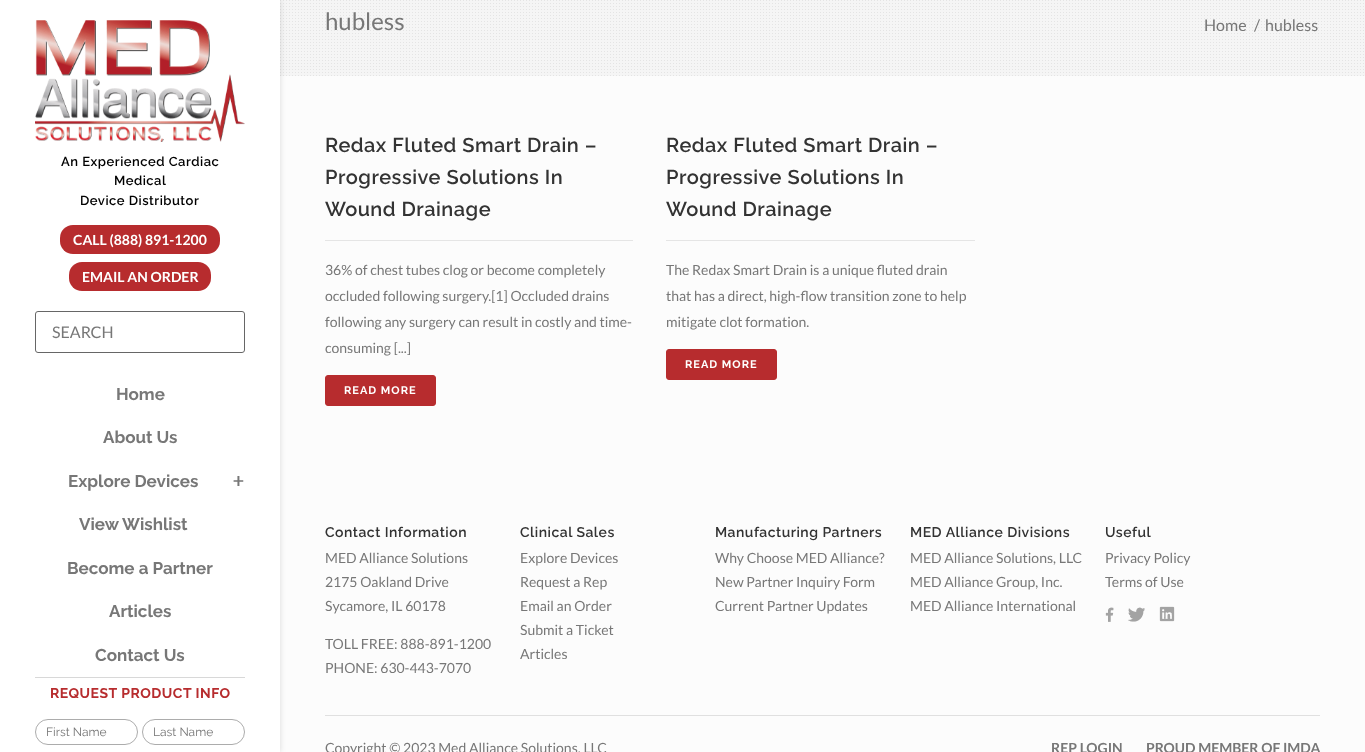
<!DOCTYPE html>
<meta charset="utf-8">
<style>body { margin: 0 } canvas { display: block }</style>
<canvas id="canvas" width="1365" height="752"></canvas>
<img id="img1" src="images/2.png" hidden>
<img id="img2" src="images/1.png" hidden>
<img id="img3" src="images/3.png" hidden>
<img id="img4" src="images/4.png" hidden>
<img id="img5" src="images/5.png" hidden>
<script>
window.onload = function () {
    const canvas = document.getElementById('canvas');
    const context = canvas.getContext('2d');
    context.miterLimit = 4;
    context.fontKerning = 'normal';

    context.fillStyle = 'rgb(252, 252, 252)';
    context.fillRect(0, 0, 1365, 752);
    context.drawImage(document.getElementById('img1'), 280, 0, 1084, 76);
    context.fillStyle = 'rgba(0, 0, 0, 0.1)';
    context.filter = 'blur(2.5px)';
    context.beginPath();
    context.rect(1, 0, 280, 752);
    context.fill();
    context.filter = 'none';
    context.fillStyle = 'rgb(255, 255, 255)';
    context.fillRect(0, 0, 280, 752);
    context.drawImage(document.getElementById('img2'), 35, 20, 210, 122);
    context.fillStyle = 'rgb(183, 44, 46)';
    context.beginPath();
    context.roundRect(60, 225, 160, 29, 13);
    context.fill();
    context.beginPath();
    context.roundRect(69, 262, 142, 29, 13);
    context.fill();
    context.beginPath();
    context.roundRect(35.5, 311.5, 209, 41, 2.5);
    context.strokeStyle = 'rgb(102, 102, 102)';
    context.stroke();
    context.fillStyle = 'rgb(216, 216, 216)';
    context.fillRect(35, 677, 210, 1);
    context.beginPath();
    context.roundRect(35.5, 719.5, 102, 25, 12.5);
    context.strokeStyle = 'rgb(172, 172, 172)';
    context.stroke();
    context.beginPath();
    context.roundRect(142.5, 719.5, 102, 25, 12.5);
    context.stroke();
    context.fillStyle = 'rgb(245, 245, 245)';
    context.fillRect(1364, 0, 1, 76);
    context.fillStyle = 'rgb(229, 229, 229)';
    context.fillRect(325, 240, 308, 1);
    context.fillStyle = 'rgb(183, 44, 46)';
    context.beginPath();
    context.roundRect(325.5, 375.5, 110, 30, 2.5);
    context.fill();
    context.strokeStyle = 'rgb(183, 44, 46)';
    context.stroke();
    context.fillStyle = 'rgb(229, 229, 229)';
    context.fillRect(666, 240, 309, 1);
    context.fillStyle = 'rgb(183, 44, 46)';
    context.beginPath();
    context.roundRect(666.5, 349.5, 110, 30, 2.5);
    context.fill();
    context.stroke();
    context.drawImage(document.getElementById('img3'), 1105, 607, 9, 15);
    context.drawImage(document.getElementById('img4'), 1128, 607, 17, 15);
    context.drawImage(document.getElementById('img5'), 1159, 606, 16, 16);
    context.fillStyle = 'rgb(224, 224, 224)';
    context.fillRect(325, 715, 995, 1);
    context.letterSpacing = '0.5px';
    context.font = '600 13px Raleway';
    context.fillStyle = 'rgb(0, 0, 0)';
    context.fillText('An Experienced Cardiac', 61, 166);
    context.fillText('Medical', 114, 185);
    context.fillText('Device Distributor', 80, 205);
    context.letterSpacing = '0px';
    context.font = 'bold 14px Lato';
    context.fillStyle = 'rgb(255, 255, 255)';
    context.fillText('CALL (888) 891-1200', 73, 245);
    context.fillText('EMAIL AN ORDER', 82, 282);
    context.font = '16px Lato';
    context.fillStyle = 'rgb(119, 119, 119)';
    context.fillText('SEARCH', 52, 338);
    context.font = 'bold 17px Raleway';
    context.fillText('Home', 116, 400);
    context.fillText('About Us', 103, 443);
    context.fillText('Explore Devices', 68, 487);
    context.font = '31px Raleway';
    context.fillText('+', 232, 492);
    context.font = 'bold 17px Raleway';
    context.fillText('View Wishlist', 79, 530);
    context.fillText('Become a Partner', 67, 574);
    context.fillText('Articles', 109, 617);
    context.fillText('Contact Us', 95, 661);
    context.letterSpacing = '0.5px';
    context.font = 'bold 14px Raleway';
    context.fillStyle = 'rgb(183, 44, 46)';
    context.fillText('REQUEST PRODUCT INFO', 50, 698);
    context.letterSpacing = '0px';
    context.font = '12px Raleway';
    context.fillStyle = 'rgb(119, 119, 119)';
    context.fillText('First Name', 46, 736);
    context.fillText('Last Name', 153, 736);
    context.font = '24px Lato';
    context.fillText('hubless', 325, 30);
    context.font = '16px Lato';
    context.fillText('Home', 1204, 31);
    context.fillText('/', 1254, 31);
    context.fillText('hubless', 1265, 31);
    context.letterSpacing = '0.5px';
    context.font = '600 20px Raleway';
    context.fillStyle = 'rgb(51, 51, 51)';
    context.fillText('Redax Fluted Smart Drain –', 325, 152);
    context.fillText('Progressive Solutions In', 325, 184);
    context.fillText('Wound Drainage', 325, 216);
    context.letterSpacing = '1px';
    context.font = 'bold 11px Raleway';
    context.fillStyle = 'rgb(255, 255, 255)';
    context.fillText('READ MORE', 344, 394);
    context.letterSpacing = '0px';
    context.font = '14px Lato';
    context.fillStyle = 'rgb(119, 119, 119)';
    context.fillText('36% of chest tubes clog or become completely', 325, 275);
    context.fillText('occluded following surgery.[1] Occluded drains', 325, 301);
    context.fillText('following any surgery can result in costly and time-', 325, 327);
    context.fillText('consuming [...]', 325, 353);
    context.letterSpacing = '0.5px';
    context.font = '600 20px Raleway';
    context.fillStyle = 'rgb(51, 51, 51)';
    context.fillText('Redax Fluted Smart Drain –', 666, 152);
    context.fillText('Progressive Solutions In', 666, 184);
    context.fillText('Wound Drainage', 666, 216);
    context.letterSpacing = '1px';
    context.font = 'bold 11px Raleway';
    context.fillStyle = 'rgb(255, 255, 255)';
    context.fillText('READ MORE', 685, 368);
    context.letterSpacing = '0px';
    context.font = '14px Lato';
    context.fillStyle = 'rgb(119, 119, 119)';
    context.fillText('The Redax Smart Drain is a unique fluted drain', 666, 275);
    context.fillText('that has a direct, high-flow transition zone to help', 666, 301);
    context.fillText('mitigate clot formation.', 666, 327);
    context.letterSpacing = '0.5px';
    context.font = '600 14px Raleway';
    context.fillStyle = 'rgb(51, 51, 51)';
    context.fillText('Contact Information', 325, 537);
    context.letterSpacing = '0px';
    context.font = '14px Lato';
    context.fillStyle = 'rgb(119, 119, 119)';
    context.fillText('MED Alliance Solutions', 325, 563);
    context.fillText('2175 Oakland Drive', 325, 587);
    context.fillText('Sycamore, IL 60178', 325, 611);
    context.fillText('TOLL FREE: 888-891-1200', 325, 649);
    context.fillText('PHONE: 630-443-7070', 325, 673);
    context.letterSpacing = '0.5px';
    context.font = '600 14px Raleway';
    context.fillStyle = 'rgb(51, 51, 51)';
    context.fillText('Clinical Sales', 520, 537);
    context.letterSpacing = '0px';
    context.font = '14px Lato';
    context.fillStyle = 'rgb(119, 119, 119)';
    context.fillText('Explore Devices', 520, 563);
    context.fillText('Request a Rep', 520, 587);
    context.fillText('Email an Order', 520, 611);
    context.fillText('Submit a Ticket', 520, 635);
    context.fillText('Articles', 520, 659);
    context.letterSpacing = '0.5px';
    context.font = '600 14px Raleway';
    context.fillStyle = 'rgb(51, 51, 51)';
    context.fillText('Manufacturing Partners', 715, 537);
    context.letterSpacing = '0px';
    context.font = '14px Lato';
    context.fillStyle = 'rgb(119, 119, 119)';
    context.fillText('Why Choose MED Alliance?', 715, 563);
    context.fillText('New Partner Inquiry Form', 715, 587);
    context.fillText('Current Partner Updates', 715, 611);
    context.letterSpacing = '0.5px';
    context.font = '600 14px Raleway';
    context.fillStyle = 'rgb(51, 51, 51)';
    context.fillText('MED Alliance Divisions', 910, 537);
    context.letterSpacing = '0px';
    context.font = '14px Lato';
    context.fillStyle = 'rgb(119, 119, 119)';
    context.fillText('MED Alliance Solutions, LLC', 910, 563);
    context.fillText('MED Alliance Group, Inc.', 910, 587);
    context.fillText('MED Alliance International', 910, 611);
    context.letterSpacing = '0.5px';
    context.font = '600 14px Raleway';
    context.fillStyle = 'rgb(51, 51, 51)';
    context.fillText('Useful', 1105, 537);
    context.letterSpacing = '0px';
    context.font = '14px Lato';
    context.fillStyle = 'rgb(119, 119, 119)';
    context.fillText('Privacy Policy', 1105, 563);
    context.fillText('Terms of Use', 1105, 587);
    context.fillText('Copyright © 2023 Med Alliance Solutions, LLC', 325, 753);
    context.font = 'bold 14px Lato';
    context.fillText('REP LOGIN', 1051, 753);
    context.fillText('PROUD MEMBER OF IMDA', 1146, 753);
};
</script>
